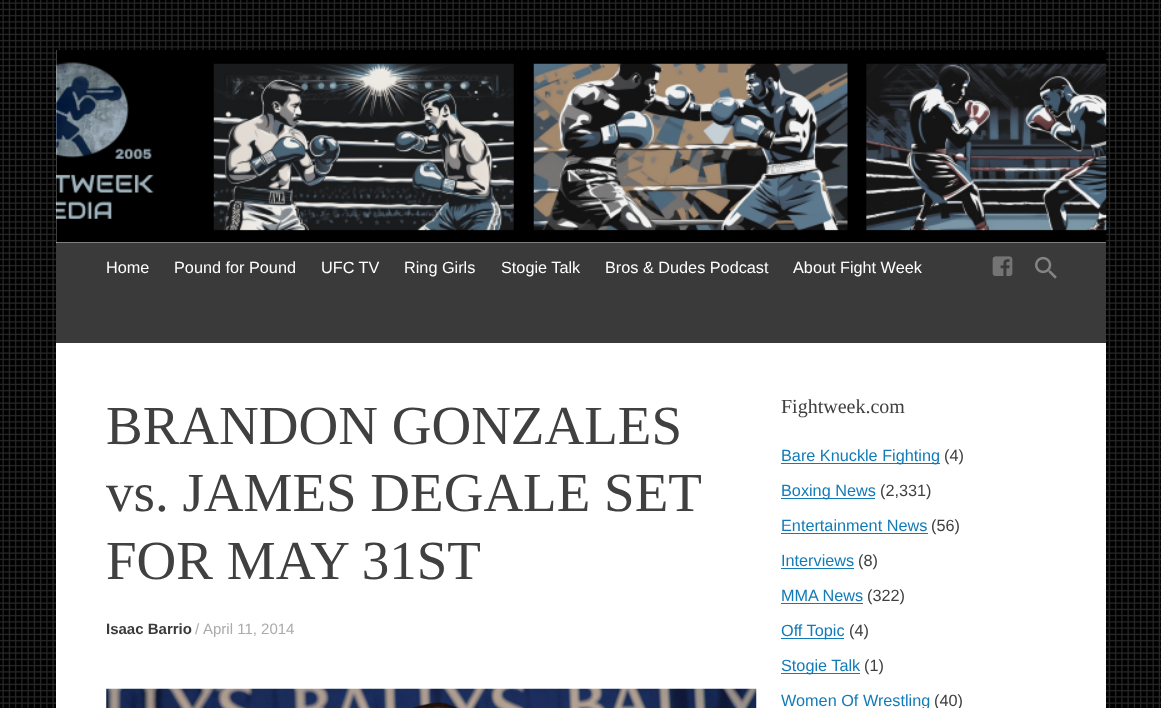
<!DOCTYPE html>
<meta charset="utf-8">
<style>body { margin: 0 } canvas { display: block }</style>
<canvas id="canvas" width="1161" height="708"></canvas>
<img id="img1" src="images/1.png" hidden>
<img id="img2" src="images/2.png" hidden>
<img id="img3" src="images/3.png" hidden>
<img id="img4" src="images/4.png" hidden>
<img id="img5" src="images/5.png" hidden>
<script>
window.onload = function () {
    const canvas = document.getElementById('canvas');
    const context = canvas.getContext('2d');
    context.miterLimit = 4;
    context.fontKerning = 'normal';

    context.fillStyle = 'rgb(255, 255, 255)';
    context.fillRect(0, 0, 1161, 708);
    context.drawImage(document.getElementById('img1'), 0, 0, 1161, 708);
    context.fillRect(56, 50, 1050, 658);
    context.drawImage(document.getElementById('img2'), 56, 50, 1051, 193);
    context.fillStyle = 'rgb(58, 58, 58)';
    context.fillRect(56, 243, 1050, 100);
    context.drawImage(document.getElementById('img3'), 992, 256, 21, 20);
    context.drawImage(document.getElementById('img4'), 1035, 256, 22, 23);
    context.drawImage(document.getElementById('img5'), 106, 688, 651, 20);
    context.fillStyle = 'rgb(17, 123, 184)';
    context.fillRect(781, 463, 159, 1);
    context.fillRect(781, 498, 94, 1);
    context.fillRect(781, 533, 147, 1);
    context.fillRect(781, 568, 73, 1);
    context.fillRect(781, 603, 82, 1);
    context.fillRect(781, 638, 63, 1);
    context.fillRect(781, 673, 79, 1);
    context.font = '16.25px Liberation Sans';
    context.fillStyle = 'rgb(255, 255, 255)';
    context.fillText('Home', 106, 273);
    context.fillText('Pound for Pound', 174, 273);
    context.fillText('UFC TV', 321, 273);
    context.fillText('Ring Girls', 404, 273);
    context.fillText('Stogie Talk', 501, 273);
    context.fillText('Bros & Dudes Podcast', 605, 273);
    context.fillText('About Fight Week', 793, 273);
    context.font = '55px Liberation Serif';
    context.fillStyle = 'rgb(64, 64, 64)';
    context.fillText('BRANDON GONZALES', 106, 444);
    context.fillText('vs. JAMES DEGALE SET', 106, 511);
    context.fillText('FOR MAY 31ST', 106, 579);
    context.font = 'bold 15px Liberation Sans';
    context.fillStyle = 'rgb(58, 58, 58)';
    context.fillText('Isaac Barrio', 106, 634);
    context.font = '15px Liberation Sans';
    context.fillStyle = 'rgb(170, 170, 170)';
    context.fillText('/', 195, 634);
    context.fillText('April 11, 2014', 203, 634);
    context.font = '20px Liberation Serif';
    context.fillStyle = 'rgb(64, 64, 64)';
    context.fillText('Fightweek.com', 781, 413);
    context.font = '16.25px Liberation Sans';
    context.fillStyle = 'rgb(17, 123, 184)';
    context.fillText('Bare Knuckle Fighting', 781, 461);
    context.fillStyle = 'rgb(64, 64, 64)';
    context.fillText('(4)', 944, 461);
    context.fillStyle = 'rgb(17, 123, 184)';
    context.fillText('Boxing News', 781, 496);
    context.fillStyle = 'rgb(64, 64, 64)';
    context.fillText('(2,331)', 880, 496);
    context.fillStyle = 'rgb(17, 123, 184)';
    context.fillText('Entertainment News', 781, 531);
    context.fillStyle = 'rgb(64, 64, 64)';
    context.fillText('(56)', 931, 531);
    context.fillStyle = 'rgb(17, 123, 184)';
    context.fillText('Interviews', 781, 566);
    context.fillStyle = 'rgb(64, 64, 64)';
    context.fillText('(8)', 858, 566);
    context.fillStyle = 'rgb(17, 123, 184)';
    context.fillText('MMA News', 781, 601);
    context.fillStyle = 'rgb(64, 64, 64)';
    context.fillText('(322)', 867, 601);
    context.fillStyle = 'rgb(17, 123, 184)';
    context.fillText('Off Topic', 781, 636);
    context.fillStyle = 'rgb(64, 64, 64)';
    context.fillText('(4)', 849, 636);
    context.fillStyle = 'rgb(17, 123, 184)';
    context.fillText('Stogie Talk', 781, 671);
    context.fillStyle = 'rgb(64, 64, 64)';
    context.fillText('(1)', 864, 671);
    context.fillStyle = 'rgb(17, 123, 184)';
    context.fillText('Women Of Wrestling', 781, 706);
    context.fillStyle = 'rgb(64, 64, 64)';
    context.fillText('(40)', 934, 706);
};
</script>
